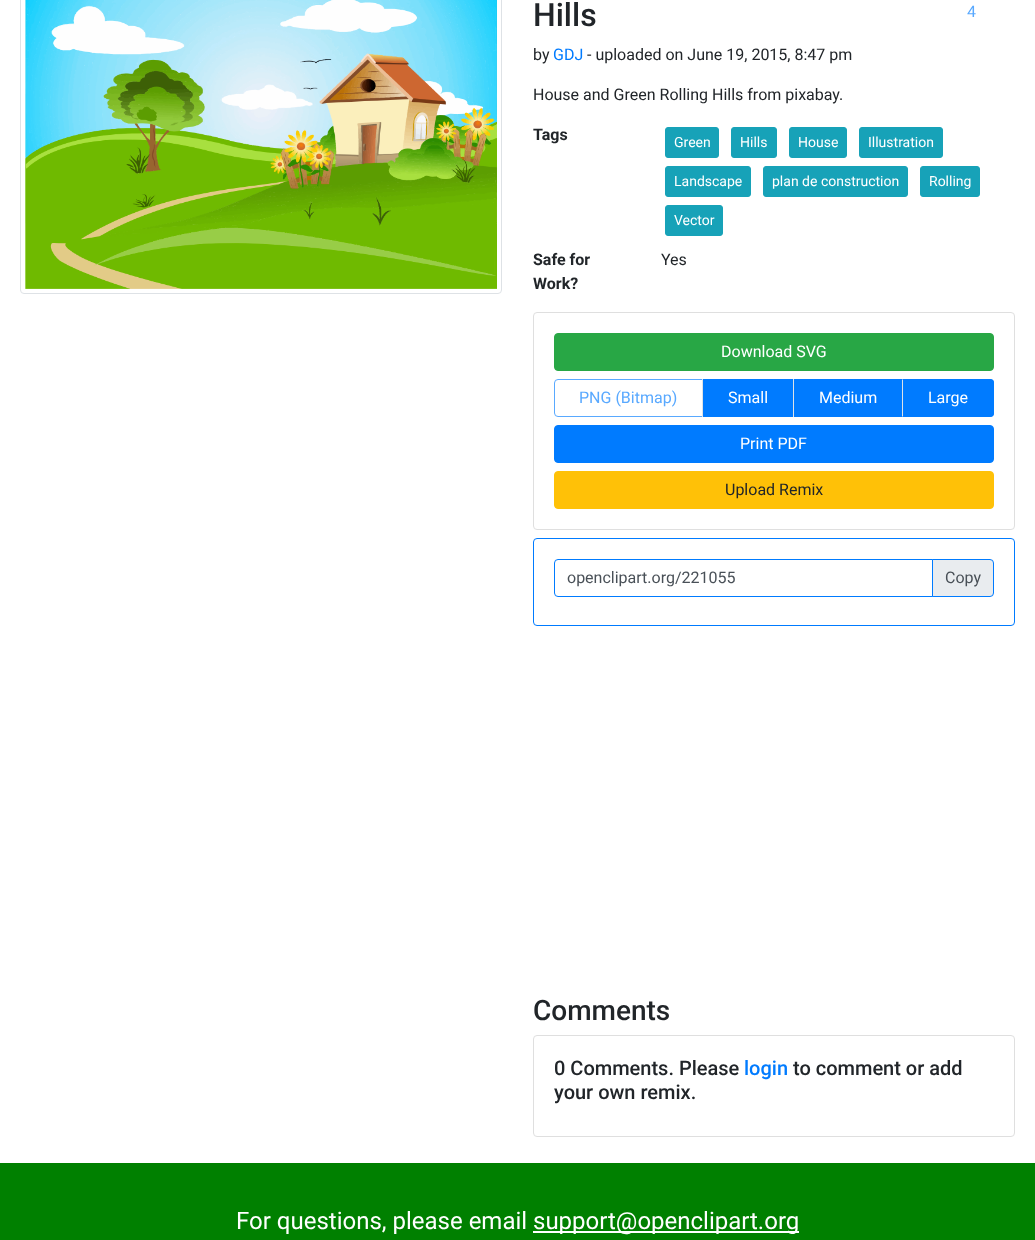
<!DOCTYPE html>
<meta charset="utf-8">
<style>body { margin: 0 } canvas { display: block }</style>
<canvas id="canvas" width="1035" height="1240"></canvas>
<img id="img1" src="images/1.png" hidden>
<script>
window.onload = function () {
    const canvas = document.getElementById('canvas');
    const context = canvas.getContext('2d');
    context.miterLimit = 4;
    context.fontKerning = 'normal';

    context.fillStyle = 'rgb(255, 255, 255)';
    context.fillRect(0, 0, 1035, 1240);
    context.beginPath();
    context.roundRect(20.5, -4.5, 481, 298, 3.5);
    context.strokeStyle = 'rgb(222, 226, 230)';
    context.stroke();
    context.drawImage(document.getElementById('img1'), 25, 0, 472, 289);
    context.fillStyle = 'rgb(23, 162, 184)';
    context.beginPath();
    context.roundRect(665.5, 127.5, 53, 30, 2.5);
    context.fill();
    context.strokeStyle = 'rgb(23, 162, 184)';
    context.stroke();
    context.beginPath();
    context.roundRect(731.5, 127.5, 45, 30, 2.5);
    context.fill();
    context.stroke();
    context.beginPath();
    context.roundRect(789.5, 127.5, 57, 30, 2.5);
    context.fill();
    context.stroke();
    context.beginPath();
    context.roundRect(859.5, 127.5, 83, 30, 2.5);
    context.fill();
    context.stroke();
    context.beginPath();
    context.roundRect(665.5, 166.5, 85, 30, 2.5);
    context.fill();
    context.stroke();
    context.beginPath();
    context.roundRect(763.5, 166.5, 144, 30, 2.5);
    context.fill();
    context.stroke();
    context.beginPath();
    context.roundRect(920.5, 166.5, 59, 30, 2.5);
    context.fill();
    context.stroke();
    context.beginPath();
    context.roundRect(665.5, 205.5, 57, 30, 2.5);
    context.fill();
    context.stroke();
    context.beginPath();
    context.roundRect(533.5, 312.5, 481, 217, 3.5);
    context.strokeStyle = 'rgb(223, 223, 223)';
    context.stroke();
    context.fillStyle = 'rgb(40, 167, 69)';
    context.beginPath();
    context.roundRect(554.5, 333.5, 439, 37, 3.5);
    context.fill();
    context.strokeStyle = 'rgb(40, 167, 69)';
    context.stroke();
    context.beginPath();
    context.roundRect(554.5, 379.5, 148, 37, [3.5, 0, 0, 3.5]);
    context.strokeStyle = 'rgb(89, 169, 255)';
    context.stroke();
    context.fillStyle = 'rgb(0, 123, 255)';
    context.fillRect(703, 379, 90, 38);
    context.fillStyle = 'rgb(222, 226, 230)';
    context.fillRect(702, 379, 1, 38);
    context.fillStyle = 'rgb(0, 123, 255)';
    context.fillRect(794, 379, 108, 38);
    context.fillStyle = 'rgb(222, 226, 230)';
    context.fillRect(793, 379, 1, 38);
    context.fillStyle = 'rgb(0, 123, 255)';
    context.beginPath();
    context.roundRect(902, 379, 92, 38, [0, 4, 4, 0]);
    context.fill();
    context.beginPath();
    context.moveTo(902, 379);
    context.lineTo(903, 380);
    context.lineTo(990, 380);
    context.lineTo(992, 381);
    context.lineTo(993, 380);
    context.lineTo(990, 379);
    context.closePath();
    context.fill();
    context.beginPath();
    context.moveTo(994, 413);
    context.lineTo(994, 383);
    context.bezierCurveTo(994, 382, 993.5, 381, 993, 380);
    context.lineTo(992, 381);
    context.bezierCurveTo(993, 381, 993, 382, 993, 383);
    context.lineTo(993, 413);
    context.bezierCurveTo(993, 414, 993, 415, 992, 415);
    context.lineTo(993, 416);
    context.bezierCurveTo(993.5, 415, 994, 414, 994, 413);
    context.closePath();
    context.fill();
    context.beginPath();
    context.moveTo(990, 417);
    context.lineTo(993, 416);
    context.lineTo(992, 415);
    context.lineTo(990, 416);
    context.lineTo(903, 416);
    context.lineTo(902, 417);
    context.closePath();
    context.fill();
    context.fillStyle = 'rgb(222, 226, 230)';
    context.beginPath();
    context.moveTo(902, 379);
    context.lineTo(902, 417);
    context.lineTo(903, 416);
    context.lineTo(903, 380);
    context.closePath();
    context.fill();
    context.fillStyle = 'rgb(0, 123, 255)';
    context.beginPath();
    context.roundRect(554.5, 425.5, 439, 37, 3.5);
    context.fill();
    context.strokeStyle = 'rgb(0, 123, 255)';
    context.stroke();
    context.fillStyle = 'rgb(255, 193, 7)';
    context.beginPath();
    context.roundRect(554.5, 471.5, 439, 37, 3.5);
    context.fill();
    context.strokeStyle = 'rgb(255, 193, 7)';
    context.stroke();
    context.beginPath();
    context.roundRect(533.5, 538.5, 481, 87, 3.5);
    context.strokeStyle = 'rgb(0, 123, 255)';
    context.stroke();
    context.beginPath();
    context.roundRect(554.5, 559.5, 378, 37, [3.5, 0, 0, 3.5]);
    context.stroke();
    context.fillStyle = 'rgb(233, 236, 239)';
    context.beginPath();
    context.roundRect(932.5, 559.5, 61, 37, [0, 3.5, 3.5, 0]);
    context.fill();
    context.stroke();
    context.beginPath();
    context.roundRect(533.5, 1035.5, 481, 101, 3.5);
    context.strokeStyle = 'rgb(223, 223, 223)';
    context.stroke();
    context.fillStyle = 'rgb(0, 128, 0)';
    context.fillRect(0, 1163, 1035, 77);
    context.fillStyle = 'rgb(255, 255, 255)';
    context.fillRect(533, 1231, 266, 2);
    context.font = '500 32px Roboto';
    context.fillStyle = 'rgb(33, 37, 41)';
    context.fillText('Hills', 533, 26);
    context.font = '16px Roboto';
    context.fillText('by', 533, 60);
    context.fillStyle = 'rgb(0, 123, 255)';
    context.fillText('GDJ', 553, 60);
    context.fillStyle = 'rgb(33, 37, 41)';
    context.fillText('- uploaded on June 19, 2015, 8:47 pm', 587, 60);
    context.fillText('House and Green Rolling Hills from pixabay.', 533, 100);
    context.fillStyle = 'rgb(89, 169, 255)';
    context.fillText('4', 967, 17);
    context.font = 'bold 16px Roboto';
    context.fillStyle = 'rgb(33, 37, 41)';
    context.fillText('Tags', 533, 140);
    context.font = '14px Roboto';
    context.fillStyle = 'rgb(255, 255, 255)';
    context.fillText('Green', 674, 147);
    context.fillText('Hills', 740, 147);
    context.fillText('House', 798, 147);
    context.fillText('Illustration', 868, 147);
    context.fillText('Landscape', 674, 186);
    context.fillText('plan de construction', 772, 186);
    context.fillText('Rolling', 929, 186);
    context.fillText('Vector', 674, 225);
    context.font = 'bold 16px Roboto';
    context.fillStyle = 'rgb(33, 37, 41)';
    context.fillText('Safe for', 533, 265);
    context.fillText('Work?', 533, 289);
    context.font = '16px Roboto';
    context.fillText('Yes', 661, 265);
    context.fillStyle = 'rgb(255, 255, 255)';
    context.fillText('Download SVG', 721, 357);
    context.fillStyle = 'rgb(89, 169, 255)';
    context.fillText('PNG (Bitmap)', 579, 403);
    context.fillStyle = 'rgb(255, 255, 255)';
    context.fillText('Small', 728, 403);
    context.fillText('Medium', 819, 403);
    context.fillText('Large', 928, 403);
    context.fillText('Print PDF', 740, 449);
    context.fillStyle = 'rgb(33, 37, 41)';
    context.fillText('Upload Remix', 725, 495);
    context.fillStyle = 'rgb(73, 80, 87)';
    context.fillText('openclipart.org/221055', 567, 583);
    context.fillText('Copy', 945, 583);
    context.font = '500 28px Roboto';
    context.fillStyle = 'rgb(33, 37, 41)';
    context.fillText('Comments', 533, 1020);
    context.font = '500 20px Roboto';
    context.fillText('0 Comments. Please', 554, 1075);
    context.fillStyle = 'rgb(0, 123, 255)';
    context.fillText('login', 744, 1075);
    context.fillStyle = 'rgb(33, 37, 41)';
    context.fillText('to comment or add', 793, 1075);
    context.fillText('your own remix.', 554, 1099);
    context.font = '24px Roboto';
    context.fillStyle = 'rgb(255, 255, 255)';
    context.fillText('For questions, please email', 236, 1229);
    context.fillText('support@openclipart.org', 533, 1229);
};
</script>
